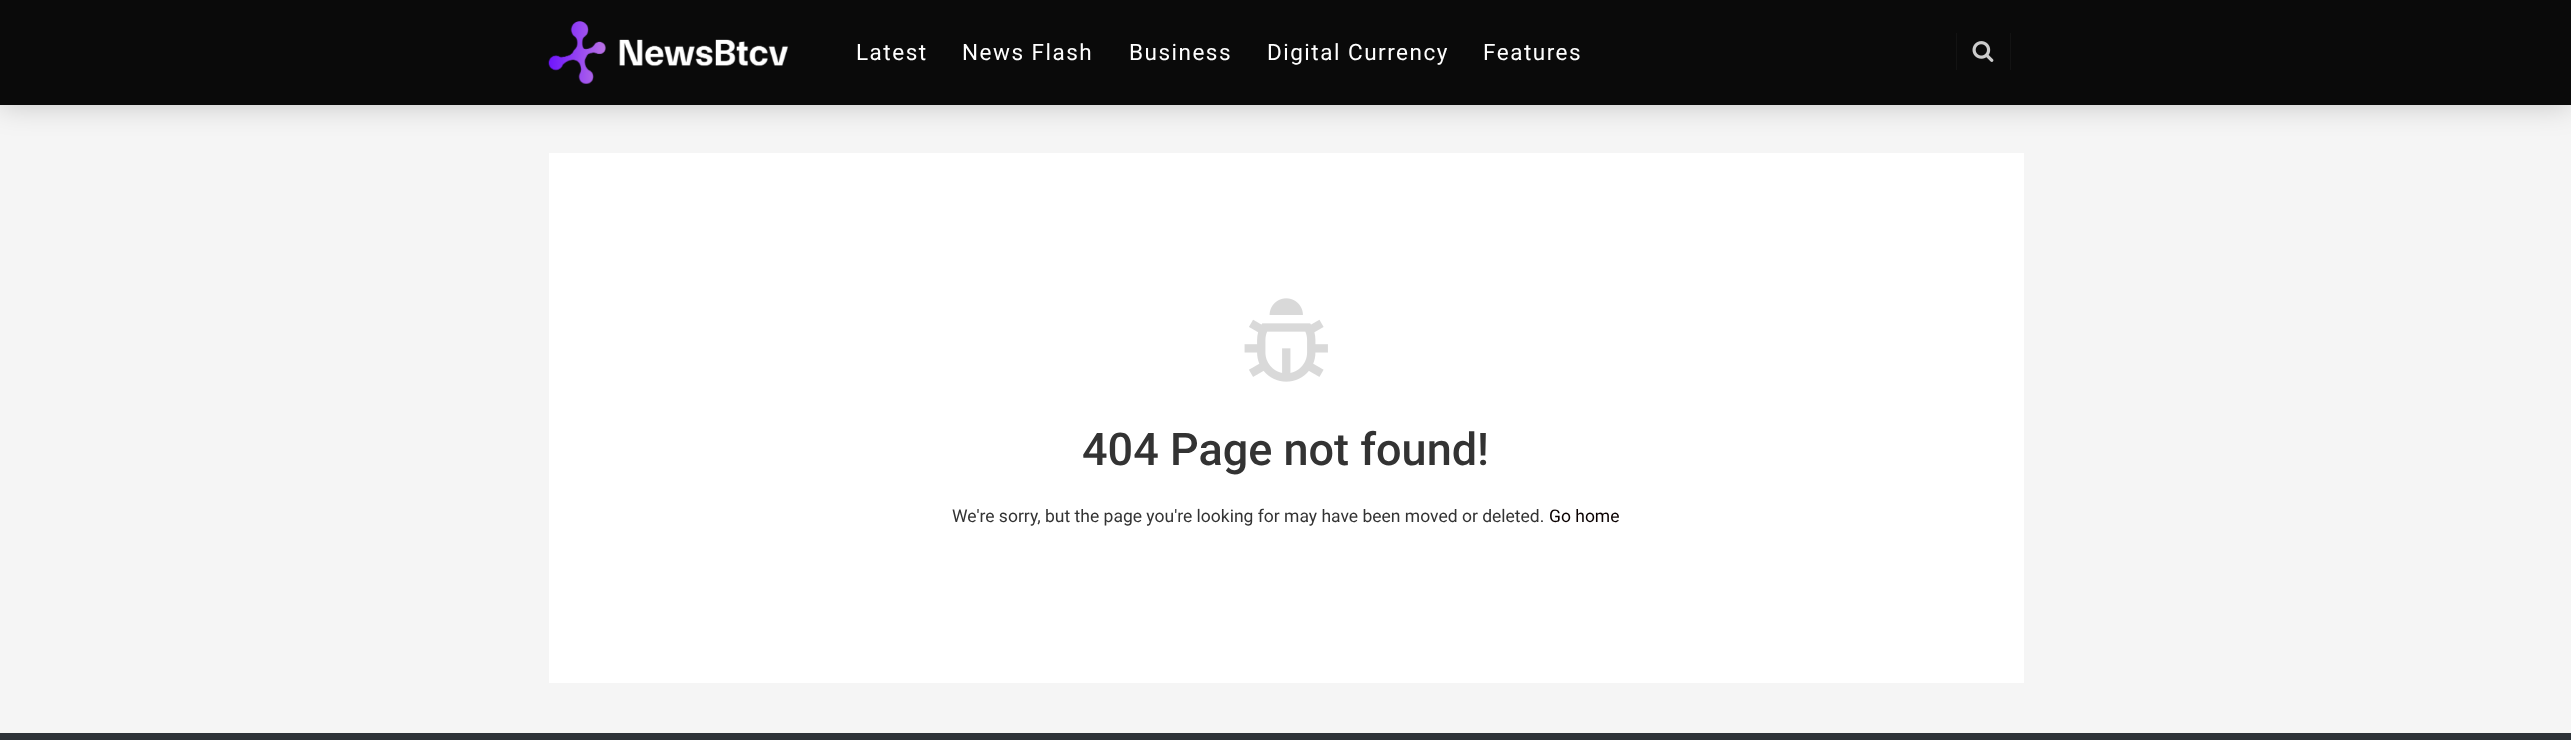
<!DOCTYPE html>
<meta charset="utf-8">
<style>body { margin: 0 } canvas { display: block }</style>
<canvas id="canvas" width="2571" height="740"></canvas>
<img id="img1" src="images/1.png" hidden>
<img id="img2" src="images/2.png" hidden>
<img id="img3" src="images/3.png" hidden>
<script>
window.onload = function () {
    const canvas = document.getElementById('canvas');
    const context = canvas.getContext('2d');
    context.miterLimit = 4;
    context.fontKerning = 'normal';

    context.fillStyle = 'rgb(245, 245, 245)';
    context.fillRect(0, 0, 2571, 740);
    context.fillStyle = 'rgba(0, 0, 0, 0.2)';
    context.filter = 'blur(15px)';
    context.beginPath();
    context.rect(0, 0, 2571, 105);
    context.fill();
    context.filter = 'none';
    context.fillStyle = 'rgb(10, 10, 10)';
    context.fillRect(0, 0, 2571, 105);
    context.drawImage(document.getElementById('img1'), 548, 21, 241, 63);
    context.fillStyle = 'rgb(19, 19, 19)';
    context.fillRect(2010, 33, 1, 37);
    context.fillRect(1956, 33, 1, 37);
    context.drawImage(document.getElementById('img2'), 1972, 41, 22, 21);
    context.fillStyle = 'rgb(255, 255, 255)';
    context.fillRect(549, 153, 1475, 530);
    context.drawImage(document.getElementById('img3'), 1244, 298, 84, 84);
    context.fillStyle = 'rgb(45, 50, 55)';
    context.fillRect(0, 733, 2571, 7);
    context.letterSpacing = '1.5px';
    context.font = '22.5px Roboto';
    context.fillStyle = 'rgb(255, 255, 255)';
    context.fillText('Latest', 856, 60);
    context.fillText('News Flash', 962, 60);
    context.fillText('Business', 1129, 60);
    context.fillText('Digital Currency', 1267, 60);
    context.fillText('Features', 1483, 60);
    context.letterSpacing = '0px';
    context.font = '500 45px Roboto';
    context.fillStyle = 'rgb(51, 51, 51)';
    context.fillText('404 Page not found!', 1082, 465);
    context.font = '17.5px Roboto';
    context.fillText('We\'re sorry, but the page you\'re looking for may have been moved or deleted.', 952, 522);
    context.fillStyle = 'rgb(10, 0, 0)';
    context.fillText('Go home', 1549, 522);
};
</script>
